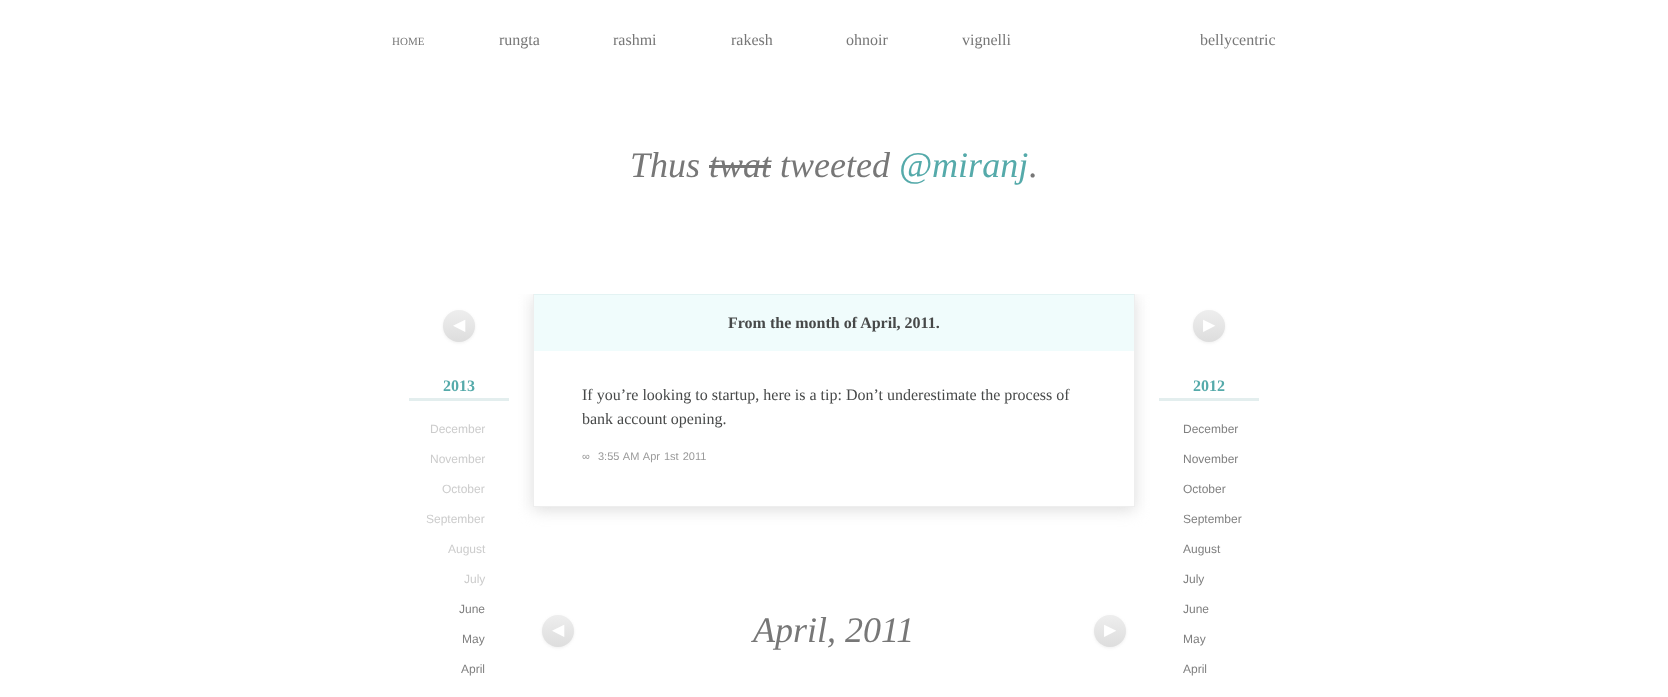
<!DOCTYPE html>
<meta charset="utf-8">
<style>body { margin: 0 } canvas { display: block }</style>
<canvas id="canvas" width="1668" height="697"></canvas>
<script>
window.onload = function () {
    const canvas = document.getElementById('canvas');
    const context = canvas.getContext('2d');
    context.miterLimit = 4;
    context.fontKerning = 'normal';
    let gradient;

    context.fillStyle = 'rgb(255, 255, 255)';
    context.fillRect(0, 0, 1668, 697);
    context.fillStyle = 'rgb(119, 119, 119)';
    context.fillRect(709, 165, 62, 3);
    context.fillStyle = 'rgb(238, 238, 238)';
    context.filter = 'blur(1.5px)';
    context.beginPath();
    context.roundRect(443, 311, 32, 32, 16);
    context.fill();
    context.filter = 'none';
    gradient = context.createLinearGradient(443, 310, 443, 342);
    gradient.addColorStop(0, 'rgb(238, 238, 238)');
    gradient.addColorStop(1, 'rgb(221, 221, 221)');
    context.fillStyle = gradient;
    context.beginPath();
    context.arc(459, 326, 16, 0, 2 * Math.PI);
    context.fill();
    context.fillStyle = 'rgb(227, 238, 238)';
    context.fillRect(409, 398, 100, 3);
    context.save();
    context.beginPath();
    context.rect(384, 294, 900, 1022);
    context.clip();
    context.beginPath();
    context.moveTo(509, 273);
    context.lineTo(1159, 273);
    context.lineTo(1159, 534);
    context.lineTo(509, 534);
    context.closePath();
    context.moveTo(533, 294);
    context.lineTo(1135, 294);
    context.lineTo(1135, 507);
    context.lineTo(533, 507);
    context.closePath();
    context.clip('evenodd');
    context.fillStyle = 'rgb(221, 221, 221)';
    context.filter = 'blur(7.5px)';
    context.beginPath();
    context.rect(533, 297, 602, 213);
    context.fill();
    context.filter = 'none';
    context.restore();
    context.fillStyle = 'rgb(238, 238, 238)';
    context.fillRect(1134, 294, 1, 213);
    context.fillRect(533, 506, 602, 1);
    context.fillRect(533, 294, 1, 213);
    context.fillStyle = 'rgb(240, 252, 252)';
    context.fillRect(534, 295, 600, 56);
    context.fillStyle = 'rgb(227, 243, 243)';
    context.fillRect(534, 294, 600, 1);
    context.fillStyle = 'rgb(238, 238, 238)';
    context.filter = 'blur(1.5px)';
    context.beginPath();
    context.roundRect(1193, 311, 32, 32, 16);
    context.fill();
    context.filter = 'none';
    gradient = context.createLinearGradient(1193, 310, 1193, 342);
    gradient.addColorStop(0, 'rgb(238, 238, 238)');
    gradient.addColorStop(1, 'rgb(221, 221, 221)');
    context.fillStyle = gradient;
    context.beginPath();
    context.arc(1209, 326, 16, 0, 2 * Math.PI);
    context.fill();
    context.fillStyle = 'rgb(227, 238, 238)';
    context.fillRect(1159, 398, 100, 3);
    context.fillStyle = 'rgb(238, 238, 238)';
    context.filter = 'blur(1.5px)';
    context.beginPath();
    context.roundRect(542, 616, 32, 32, 16);
    context.fill();
    context.filter = 'none';
    gradient = context.createLinearGradient(542, 615, 542, 647);
    gradient.addColorStop(0, 'rgb(238, 238, 238)');
    gradient.addColorStop(1, 'rgb(221, 221, 221)');
    context.fillStyle = gradient;
    context.beginPath();
    context.arc(558, 631, 16, 0, 2 * Math.PI);
    context.fill();
    context.fillStyle = 'rgb(238, 238, 238)';
    context.filter = 'blur(1.5px)';
    context.beginPath();
    context.roundRect(1094, 616, 32, 32, 16);
    context.fill();
    context.filter = 'none';
    gradient = context.createLinearGradient(1094, 615, 1094, 647);
    gradient.addColorStop(0, 'rgb(238, 238, 238)');
    gradient.addColorStop(1, 'rgb(221, 221, 221)');
    context.fillStyle = gradient;
    context.beginPath();
    context.arc(1110, 631, 16, 0, 2 * Math.PI);
    context.fill();
    context.font = '11px Liberation Serif';
    context.fillStyle = 'rgb(119, 119, 119)';
    context.fillText('HOME', 392, 45);
    context.font = '16px Liberation Serif';
    context.fillText('rungta', 499, 45);
    context.fillText('rashmi', 613, 45);
    context.fillText('rakesh', 731, 45);
    context.fillText('ohnoir', 846, 45);
    context.fillText('vignelli', 962, 45);
    context.fillText('bellycentric', 1200, 45);
    context.font = 'italic 36px Liberation Serif';
    context.fillText('Thus twat tweeted', 630, 177);
    context.fillStyle = 'rgb(85, 170, 170)';
    context.fillText('@miranj', 899, 177);
    context.fillStyle = 'rgb(119, 119, 119)';
    context.fillText('.', 1029, 177);
    context.font = '16px DejaVu Sans';
    context.fillStyle = 'rgb(255, 255, 255)';
    context.fillText('◀', 453, 330);
    context.font = 'bold 16px Liberation Serif';
    context.fillStyle = 'rgb(85, 170, 170)';
    context.fillText('2013', 443, 391);
    context.font = '12px Liberation Sans';
    context.fillStyle = 'rgb(204, 204, 204)';
    context.fillText('December', 430, 433);
    context.fillText('November', 430, 463);
    context.fillText('October', 442, 493);
    context.fillText('September', 426, 523);
    context.fillText('August', 448, 553);
    context.fillText('July', 464, 583);
    context.fillStyle = 'rgb(128, 128, 128)';
    context.fillText('June', 459, 613);
    context.fillText('May', 462, 643);
    context.fillText('April', 461, 673);
    context.font = 'bold 16px Liberation Serif';
    context.fillStyle = 'rgb(71, 73, 73)';
    context.fillText('From the month of April, 2011.', 728, 328);
    context.font = '16px Liberation Serif';
    context.fillText('If you’re looking to startup, here is a tip: Don’t underestimate the process of', 582, 400);
    context.fillText('bank account opening.', 582, 424);
    context.font = '11px Liberation Sans';
    context.fillStyle = 'rgb(153, 153, 153)';
    context.fillText('∞', 582, 460);
    context.wordSpacing = '1px';
    context.fillText('3:55 AM Apr 1st 2011', 598, 460);
    context.wordSpacing = '0px';
    context.font = '16px DejaVu Sans';
    context.fillStyle = 'rgb(255, 255, 255)';
    context.fillText('▶', 1203, 330);
    context.font = 'bold 16px Liberation Serif';
    context.fillStyle = 'rgb(85, 170, 170)';
    context.fillText('2012', 1193, 391);
    context.font = '12px Liberation Sans';
    context.fillStyle = 'rgb(128, 128, 128)';
    context.fillText('December', 1183, 433);
    context.fillText('November', 1183, 463);
    context.fillText('October', 1183, 493);
    context.fillText('September', 1183, 523);
    context.fillText('August', 1183, 553);
    context.fillText('July', 1183, 583);
    context.fillText('June', 1183, 613);
    context.fillText('May', 1183, 643);
    context.fillText('April', 1183, 673);
    context.font = '16px DejaVu Sans';
    context.fillStyle = 'rgb(255, 255, 255)';
    context.fillText('◀', 552, 635);
    context.font = 'italic 36px Liberation Serif';
    context.fillStyle = 'rgb(119, 119, 119)';
    context.fillText('April, 2011', 753, 642);
    context.font = '16px DejaVu Sans';
    context.fillStyle = 'rgb(255, 255, 255)';
    context.fillText('▶', 1104, 635);
};
</script>
